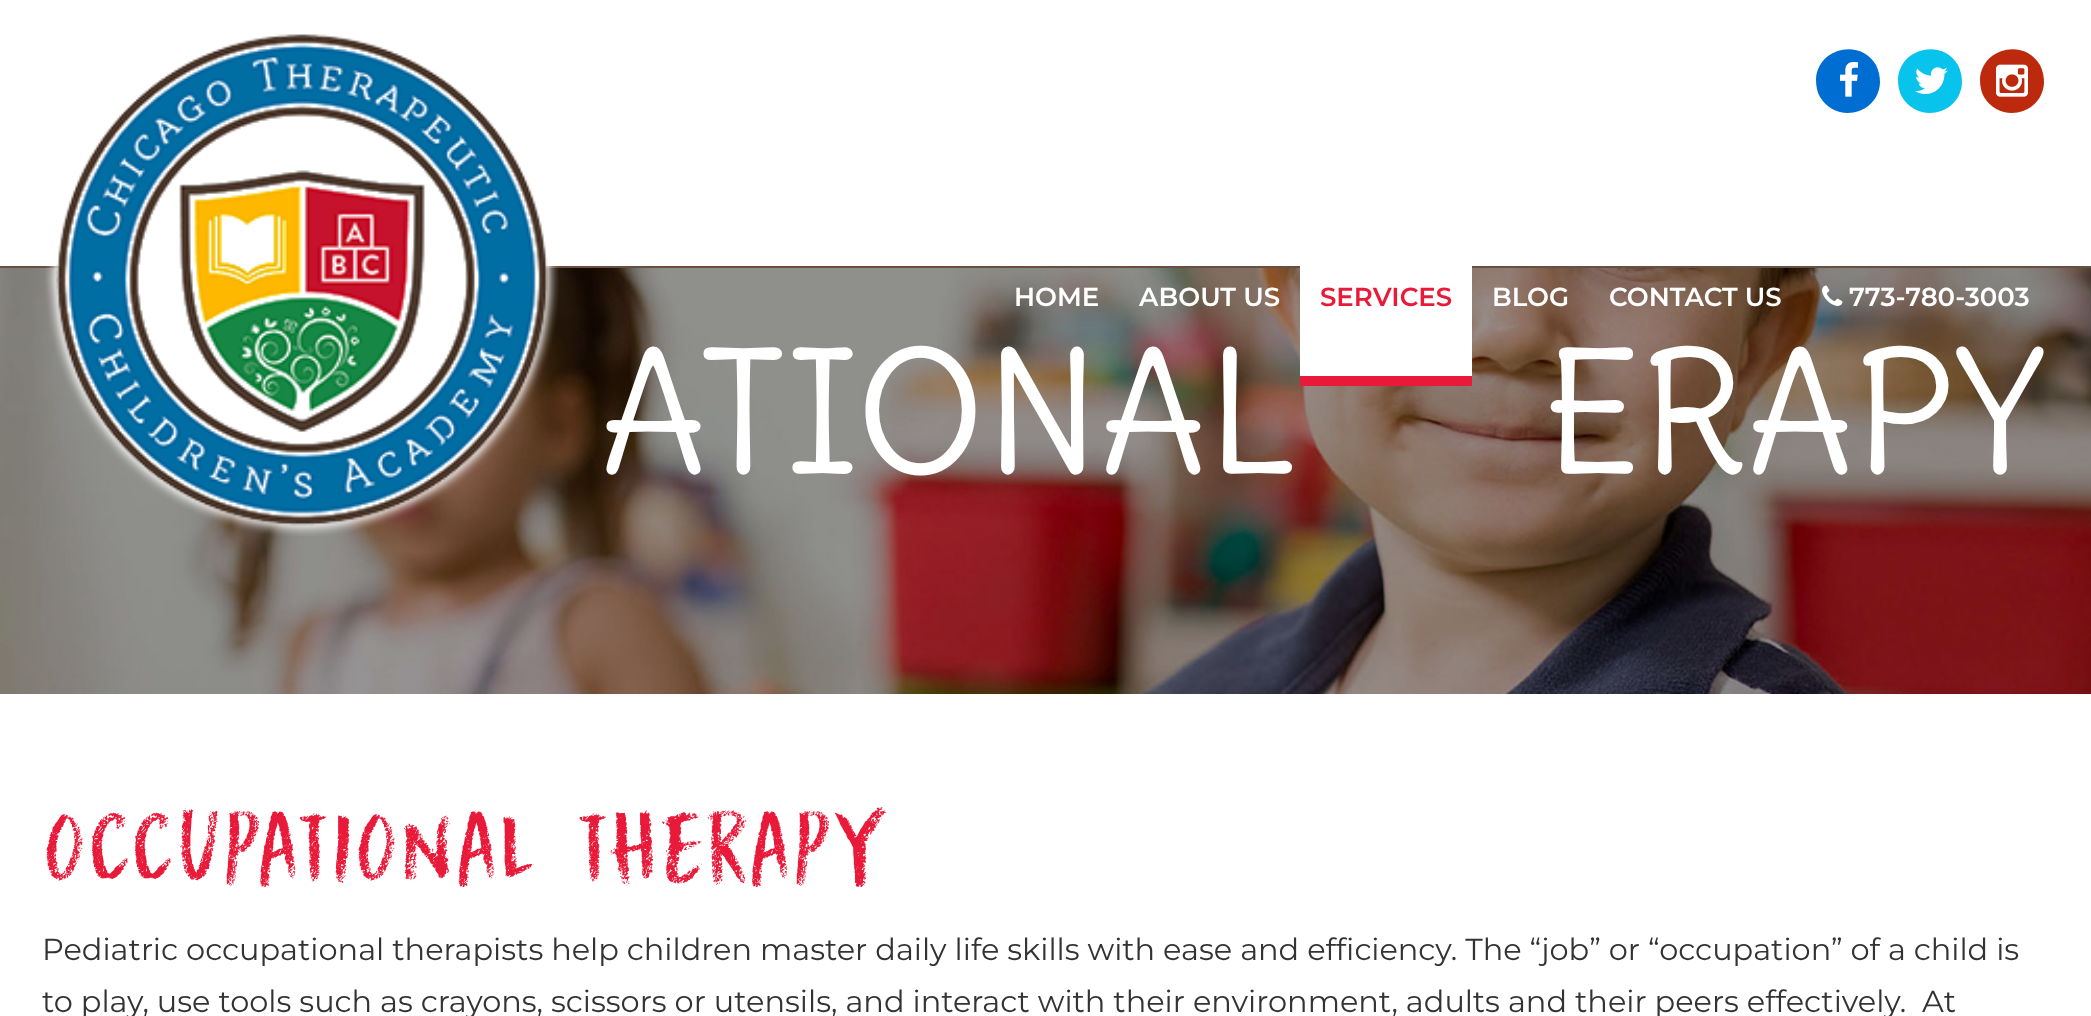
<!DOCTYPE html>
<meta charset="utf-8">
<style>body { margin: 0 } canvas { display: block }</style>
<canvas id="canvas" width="2091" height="1016"></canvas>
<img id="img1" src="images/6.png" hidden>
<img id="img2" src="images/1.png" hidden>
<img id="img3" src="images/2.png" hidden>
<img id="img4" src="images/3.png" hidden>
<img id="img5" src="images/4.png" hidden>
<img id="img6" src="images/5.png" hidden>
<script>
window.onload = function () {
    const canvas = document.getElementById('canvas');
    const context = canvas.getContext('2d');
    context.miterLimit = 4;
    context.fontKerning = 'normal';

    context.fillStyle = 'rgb(255, 255, 255)';
    context.fillRect(0, 0, 2091, 1016);
    context.fillStyle = 'rgb(105, 79, 64)';
    context.fillRect(0, 266, 2091, 2);
    context.drawImage(document.getElementById('img1'), 0, 268, 2091, 426);
    context.drawImage(document.getElementById('img2'), 45, 34, 514, 502);
    context.fillStyle = 'rgb(0, 109, 210)';
    context.beginPath();
    context.moveTo(1876, 65);
    context.bezierCurveTo(1879, 71, 1880, 77, 1880, 83);
    context.bezierCurveTo(1878, 115, 1836, 124, 1820, 97);
    context.bezierCurveTo(1817, 92, 1816, 86, 1816, 79);
    context.bezierCurveTo(1818, 48, 1860, 38, 1876, 65);
    context.closePath();
    context.fill();
    context.drawImage(document.getElementById('img3'), 1840, 62, 18, 35);
    context.fillStyle = 'rgb(8, 195, 235)';
    context.beginPath();
    context.moveTo(1958, 65);
    context.bezierCurveTo(1961, 71, 1962, 77, 1962, 83);
    context.bezierCurveTo(1960, 115, 1918, 124, 1902, 97);
    context.bezierCurveTo(1899, 92, 1898, 86, 1898, 79);
    context.bezierCurveTo(1900, 48, 1942, 38, 1958, 65);
    context.closePath();
    context.fill();
    context.drawImage(document.getElementById('img4'), 1915, 67, 33, 27);
    context.fillStyle = 'rgb(188, 41, 13)';
    context.beginPath();
    context.moveTo(2040, 65);
    context.bezierCurveTo(2043, 71, 2044, 77, 2044, 83);
    context.bezierCurveTo(2042, 115, 2000, 124, 1984, 97);
    context.bezierCurveTo(1981, 92, 1980, 86, 1980, 79);
    context.bezierCurveTo(1982, 48, 2024, 38, 2040, 65);
    context.closePath();
    context.fill();
    context.drawImage(document.getElementById('img5'), 1996, 64, 32, 33);
    context.fillStyle = 'rgb(255, 255, 255)';
    context.fillRect(1300, 266, 172, 110);
    context.fillStyle = 'rgb(233, 25, 57)';
    context.fillRect(1300, 376, 172, 10);
    context.drawImage(document.getElementById('img6'), 1822, 285, 21, 21);
    context.font = '600 26px Montserrat';
    context.fillStyle = 'rgb(255, 255, 255)';
    context.fillText('HOME', 1014, 306);
    context.fillText('ABOUT US', 1139, 306);
    context.fillStyle = 'rgb(233, 25, 57)';
    context.fillText('SERVICES', 1320, 306);
    context.fillStyle = 'rgb(255, 255, 255)';
    context.fillText('BLOG', 1492, 306);
    context.fillText('CONTACT US', 1609, 306);
    context.fillText('773-780-3003', 1849, 306);
    context.font = '166.5px Delius';
    context.fillText('ATIONAL', 600, 473);
    context.fillText('ERAPY', 1543, 473);
    context.font = '91.25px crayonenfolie';
    context.fillStyle = 'rgb(233, 25, 57)';
    context.fillText('OCCUPATIONAL THERAPY', 42, 883);
    context.font = '30.42px Montserrat';
    context.fillStyle = 'rgb(51, 51, 51)';
    context.fillText('Pediatric occupational therapists help children master daily life skills with ease and efficiency. The “job” or “occupation” of a child is', 42, 960);
    context.fillText('to play, use tools such as crayons, scissors or utensils, and interact with their environment, adults and their peers effectively.  At', 42, 1012);
};
</script>
